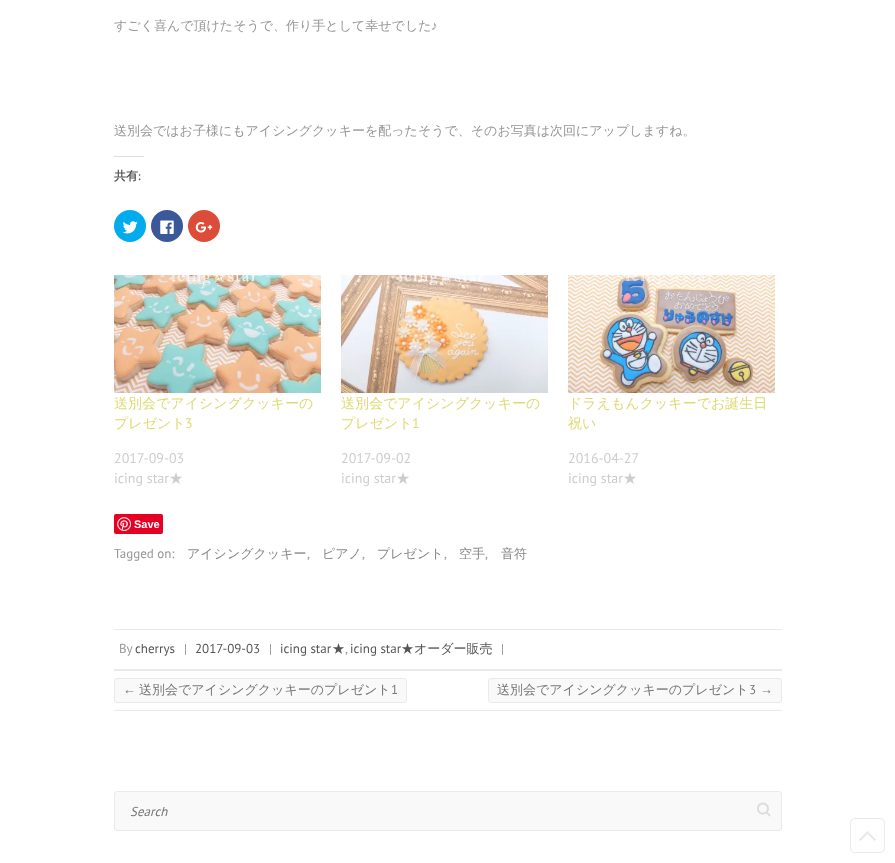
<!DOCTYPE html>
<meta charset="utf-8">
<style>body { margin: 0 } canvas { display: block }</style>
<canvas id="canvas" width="895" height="863"></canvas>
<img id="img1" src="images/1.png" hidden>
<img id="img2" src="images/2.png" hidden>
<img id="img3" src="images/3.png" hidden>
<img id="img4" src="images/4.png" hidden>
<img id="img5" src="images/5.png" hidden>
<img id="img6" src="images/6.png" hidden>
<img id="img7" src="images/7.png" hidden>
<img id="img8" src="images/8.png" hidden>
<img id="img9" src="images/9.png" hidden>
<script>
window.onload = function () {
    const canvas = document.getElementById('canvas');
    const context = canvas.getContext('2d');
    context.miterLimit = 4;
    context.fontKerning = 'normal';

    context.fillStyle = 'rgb(255, 255, 255)';
    context.fillRect(0, 0, 895, 863);
    context.fillStyle = 'rgb(221, 221, 221)';
    context.fillRect(114, 156, 30, 1);
    context.fillStyle = 'rgb(0, 172, 238)';
    context.beginPath();
    context.arc(130, 226, 16, 0, 2 * Math.PI);
    context.fill();
    context.drawImage(document.getElementById('img1'), 122, 221, 16, 13);
    context.fillStyle = 'rgb(59, 89, 152)';
    context.beginPath();
    context.arc(167, 226, 16, 0, 2 * Math.PI);
    context.fill();
    context.drawImage(document.getElementById('img2'), 160, 220, 14, 14);
    context.fillStyle = 'rgb(221, 75, 57)';
    context.beginPath();
    context.arc(204, 226, 16, 0, 2 * Math.PI);
    context.fill();
    context.drawImage(document.getElementById('img3'), 195, 222, 18, 11);
    context.drawImage(document.getElementById('img4'), 114, 275, 207, 118);
    context.drawImage(document.getElementById('img5'), 341, 275, 207, 118);
    context.drawImage(document.getElementById('img6'), 568, 275, 207, 118);
    context.fillStyle = 'rgb(230, 0, 35)';
    context.beginPath();
    context.roundRect(114, 514, 49, 20, 2);
    context.fill();
    context.drawImage(document.getElementById('img7'), 117, 517, 14, 14);
    context.fillStyle = 'rgb(234, 234, 234)';
    context.fillRect(114, 629, 668, 1);
    context.fillRect(114, 669, 668, 2);
    context.fillRect(114, 710, 668, 1);
    context.fillStyle = 'rgb(249, 249, 249)';
    context.beginPath();
    context.roundRect(114.5, 678.5, 292, 24, 2.5);
    context.fill();
    context.strokeStyle = 'rgb(234, 234, 234)';
    context.stroke();
    context.beginPath();
    context.roundRect(488.5, 678.5, 293, 24, 2.5);
    context.fill();
    context.stroke();
    context.beginPath();
    context.roundRect(114, 791, 668, 40, 3);
    context.fill();
    context.drawImage(document.getElementById('img8'), 757, 802, 14, 15);
    context.beginPath();
    context.roundRect(114.5, 791.5, 667, 39, 2.5);
    context.stroke();
    context.drawImage(document.getElementById('img9'), 850, 818, 35, 35);
    context.font = '500 13px WenQuanYi Zen Hei';
    context.fillStyle = 'rgb(150, 150, 150)';
    context.fillText('すごく喜んで頂けたそうで、作り手として幸せでした', 114, 30);
    context.font = '13px Liberation Sans';
    context.fillText('♪', 431, 30);
    context.font = '500 13px WenQuanYi Zen Hei';
    context.fillText('送別会ではお子様にもアイシングクッキーを配ったそうで、そのお写真は次回にアップしますね。', 114, 135);
    context.font = 'bold 12px WenQuanYi Zen Hei';
    context.fillStyle = 'rgb(85, 85, 85)';
    context.fillText('共有', 114, 180);
    context.font = 'bold 12px Philosopher';
    context.fillText(':', 138, 180);
    context.font = '500 14px WenQuanYi Zen Hei';
    context.fillStyle = 'rgb(221, 218, 113)';
    context.fillText('送別会でアイシングクッキーの', 114, 408);
    context.fillText('プレゼント', 114, 428);
    context.font = '14px PT Sans';
    context.fillText('3', 185, 428);
    context.fillStyle = 'rgb(205, 205, 205)';
    context.fillText('2017-09-03', 114, 463);
    context.fillText('icing star', 114, 483);
    context.font = '500 14px WenQuanYi Zen Hei';
    context.fillText('★', 169, 483);
    context.fillStyle = 'rgb(221, 218, 113)';
    context.fillText('送別会でアイシングクッキーの', 341, 408);
    context.fillText('プレゼント', 341, 428);
    context.font = '14px PT Sans';
    context.fillText('1', 412, 428);
    context.fillStyle = 'rgb(205, 205, 205)';
    context.fillText('2017-09-02', 341, 463);
    context.fillText('icing star', 341, 483);
    context.font = '500 14px WenQuanYi Zen Hei';
    context.fillText('★', 396, 483);
    context.fillStyle = 'rgb(221, 218, 113)';
    context.fillText('ドラえもんクッキーでお誕生日', 568, 408);
    context.fillText('祝い', 568, 428);
    context.font = '14px PT Sans';
    context.fillStyle = 'rgb(205, 205, 205)';
    context.fillText('2016-04-27', 568, 463);
    context.fillText('icing star', 568, 483);
    context.font = '500 14px WenQuanYi Zen Hei';
    context.fillText('★', 623, 483);
    context.font = 'bold 11px Liberation Sans';
    context.fillStyle = 'rgb(255, 255, 255)';
    context.fillText('Save', 134, 528);
    context.font = '13px PT Sans';
    context.fillStyle = 'rgb(150, 150, 150)';
    context.fillText('Tagged on:', 114, 558);
    context.font = '500 13px WenQuanYi Zen Hei';
    context.fillStyle = 'rgb(136, 136, 136)';
    context.fillText('アイシングクッキー', 187, 558);
    context.font = '13px PT Sans';
    context.fillStyle = 'rgb(150, 150, 150)';
    context.fillText(',', 307, 558);
    context.font = '500 13px WenQuanYi Zen Hei';
    context.fillStyle = 'rgb(136, 136, 136)';
    context.fillText('ピアノ', 322, 558);
    context.font = '13px PT Sans';
    context.fillStyle = 'rgb(150, 150, 150)';
    context.fillText(',', 362, 558);
    context.font = '500 13px WenQuanYi Zen Hei';
    context.fillStyle = 'rgb(136, 136, 136)';
    context.fillText('プレゼント', 377, 558);
    context.font = '13px PT Sans';
    context.fillStyle = 'rgb(150, 150, 150)';
    context.fillText(',', 444, 558);
    context.font = '500 13px WenQuanYi Zen Hei';
    context.fillStyle = 'rgb(136, 136, 136)';
    context.fillText('空手', 459, 558);
    context.font = '13px PT Sans';
    context.fillStyle = 'rgb(150, 150, 150)';
    context.fillText(',', 485, 558);
    context.font = '500 13px WenQuanYi Zen Hei';
    context.fillStyle = 'rgb(136, 136, 136)';
    context.fillText('音符', 501, 558);
    context.font = '13px PT Sans';
    context.fillStyle = 'rgb(150, 150, 150)';
    context.fillText('By', 119, 653);
    context.fillStyle = 'rgb(85, 85, 85)';
    context.fillText('cherrys', 135, 653);
    context.fillStyle = 'rgb(150, 150, 150)';
    context.fillText('|', 184, 653);
    context.fillStyle = 'rgb(85, 85, 85)';
    context.fillText('2017-09-03', 195, 653);
    context.fillStyle = 'rgb(150, 150, 150)';
    context.fillText('|', 269, 653);
    context.fillStyle = 'rgb(85, 85, 85)';
    context.fillText('icing star', 280, 653);
    context.font = '500 13px WenQuanYi Zen Hei';
    context.fillText('★', 332, 653);
    context.font = '13px PT Sans';
    context.fillStyle = 'rgb(150, 150, 150)';
    context.fillText(',', 345, 653);
    context.fillStyle = 'rgb(85, 85, 85)';
    context.fillText('icing star', 350, 653);
    context.font = '500 13px WenQuanYi Zen Hei';
    context.fillText('★オーダー販売', 401, 653);
    context.font = '13px PT Sans';
    context.fillStyle = 'rgb(150, 150, 150)';
    context.fillText('|', 501, 653);
    context.font = '13px Liberation Sans';
    context.fillStyle = 'rgb(119, 119, 119)';
    context.fillText('←', 123, 694);
    context.font = '500 13px WenQuanYi Zen Hei';
    context.fillText('送別会でアイシングクッキーのプレゼント', 139, 694);
    context.font = '13px PT Sans';
    context.fillText('1', 391, 694);
    context.font = '500 13px WenQuanYi Zen Hei';
    context.fillText('送別会でアイシングクッキーのプレゼント', 497, 694);
    context.font = '13px PT Sans';
    context.fillText('3', 749, 694);
    context.font = '13px Liberation Sans';
    context.fillText('→', 760, 694);
    context.font = 'italic 13px PT Sans';
    context.fillText('Search', 130, 816);
};
</script>
